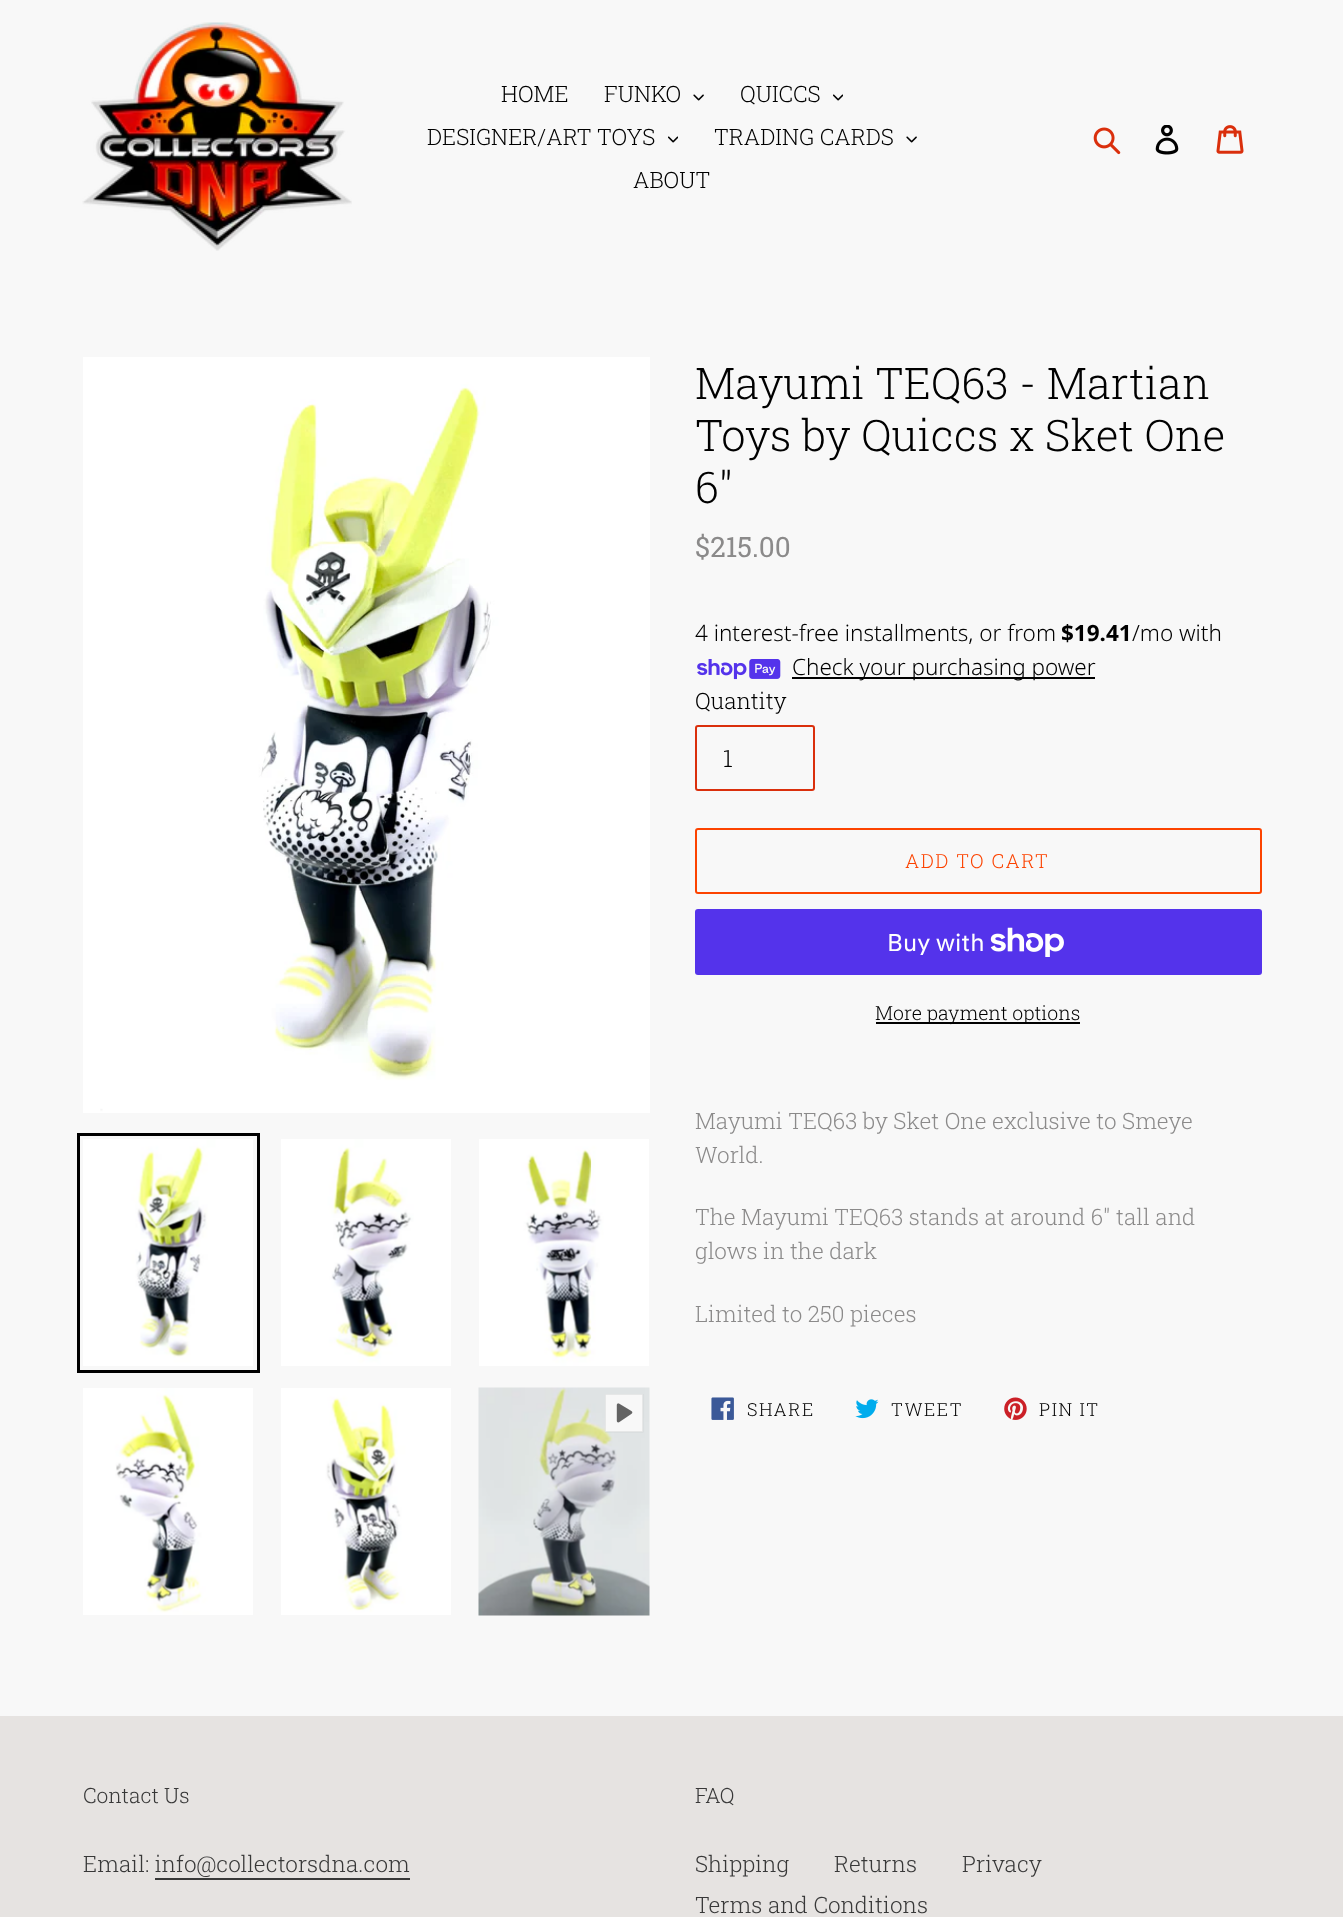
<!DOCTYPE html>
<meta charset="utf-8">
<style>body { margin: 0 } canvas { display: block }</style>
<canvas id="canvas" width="1343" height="1917"></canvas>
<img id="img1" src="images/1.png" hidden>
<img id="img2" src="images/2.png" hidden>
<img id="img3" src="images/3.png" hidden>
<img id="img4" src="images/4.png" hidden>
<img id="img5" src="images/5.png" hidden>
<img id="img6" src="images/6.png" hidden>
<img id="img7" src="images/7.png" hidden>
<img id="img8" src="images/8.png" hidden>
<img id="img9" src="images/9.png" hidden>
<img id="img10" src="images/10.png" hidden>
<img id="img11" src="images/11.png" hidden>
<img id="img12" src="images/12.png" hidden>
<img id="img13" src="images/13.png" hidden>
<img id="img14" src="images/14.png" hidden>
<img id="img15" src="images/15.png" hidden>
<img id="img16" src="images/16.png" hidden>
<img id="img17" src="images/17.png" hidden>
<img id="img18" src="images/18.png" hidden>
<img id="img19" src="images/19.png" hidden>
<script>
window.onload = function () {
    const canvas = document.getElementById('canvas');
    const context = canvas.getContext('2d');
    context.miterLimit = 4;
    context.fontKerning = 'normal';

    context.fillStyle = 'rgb(248, 248, 248)';
    context.fillRect(0, 0, 1343, 1917);
    context.drawImage(document.getElementById('img1'), 82, 22, 270, 229);
    context.drawImage(document.getElementById('img2'), 693, 94, 11, 7);
    context.drawImage(document.getElementById('img3'), 833, 94, 10, 7);
    context.drawImage(document.getElementById('img3'), 668, 136, 10, 7);
    context.drawImage(document.getElementById('img2'), 906, 136, 11, 7);
    context.drawImage(document.getElementById('img4'), 1093, 127, 28, 28);
    context.drawImage(document.getElementById('img5'), 1155, 125, 24, 30);
    context.drawImage(document.getElementById('img6'), 1216, 125, 28, 29);
    context.drawImage(document.getElementById('img7'), 83, 357, 567, 756);
    context.strokeStyle = 'rgb(0, 0, 0)';
    context.lineWidth = 3;
    context.strokeRect(78.5, 1134.5, 180, 237);
    context.drawImage(document.getElementById('img8'), 83, 1139, 170, 227);
    context.drawImage(document.getElementById('img9'), 281, 1139, 170, 227);
    context.drawImage(document.getElementById('img10'), 479, 1139, 170, 227);
    context.drawImage(document.getElementById('img11'), 83, 1388, 170, 227);
    context.drawImage(document.getElementById('img12'), 281, 1388, 170, 227);
    context.drawImage(document.getElementById('img13'), 478, 1387, 172, 229);
    context.drawImage(document.getElementById('img14'), 605, 1394, 39, 39);
    context.drawImage(document.getElementById('img15'), 697, 659, 84, 21);
    context.fillStyle = 'rgb(0, 0, 0)';
    context.fillRect(792, 677, 303, 2);
    context.beginPath();
    context.roundRect(696, 726, 118, 64, 2);
    context.strokeStyle = 'rgb(218, 47, 12)';
    context.lineWidth = 2;
    context.stroke();
    context.beginPath();
    context.roundRect(696, 829, 565, 64, 2);
    context.strokeStyle = 'rgb(252, 67, 0)';
    context.stroke();
    context.fillStyle = 'rgb(84, 51, 235)';
    context.beginPath();
    context.roundRect(695, 909, 567, 66, 3);
    context.fill();
    context.drawImage(document.getElementById('img16'), 990, 927, 74, 30);
    context.fillStyle = 'rgb(0, 0, 0)';
    context.fillRect(876, 1022, 204, 2);
    context.drawImage(document.getElementById('img17'), 711, 1397, 23, 23);
    context.drawImage(document.getElementById('img18'), 855, 1399, 24, 20);
    context.drawImage(document.getElementById('img19'), 1004, 1397, 23, 23);
    context.fillStyle = 'rgb(230, 227, 225)';
    context.fillRect(0, 1716, 1343, 201);
    context.fillStyle = 'rgb(56, 56, 56)';
    context.fillRect(155, 1878, 255, 2);
    context.font = '300 22.5px Roboto Slab';
    context.fillStyle = 'rgb(0, 0, 0)';
    context.fillText('HOME', 501, 102);
    context.fillText('FUNKO', 604, 102);
    context.fillText('QUICCS', 740, 102);
    context.fillText('DESIGNER/ART TOYS', 427, 145);
    context.fillText('TRADING CARDS', 714, 145);
    context.fillText('ABOUT', 633, 188);
    context.font = '300 43.5px Roboto Slab';
    context.fillText('Mayumi TEQ63 - Martian', 695, 399);
    context.fillText('Toys by Quiccs x Sket One', 695, 451);
    context.fillText('6"', 695, 503);
    context.font = '28px Roboto Slab';
    context.fillStyle = 'rgb(139, 138, 138)';
    context.fillText('$215.00', 695, 557);
    context.font = '300 22.5px Noto Sans';
    context.fillStyle = 'rgb(0, 0, 0)';
    context.fillText('4 interest-free installments, or from', 695, 641);
    context.font = 'bold 22.5px Noto Sans';
    context.fillText('$19.41', 1061, 641);
    context.font = '300 22.5px Noto Sans';
    context.fillText('/mo with', 1132, 641);
    context.fillText('Check your purchasing power', 792, 675);
    context.font = '300 22.5px Roboto Slab';
    context.fillText('Quantity', 695, 709);
    context.font = '300 24px Roboto Slab';
    context.fillText('1', 723, 767);
    context.letterSpacing = '1.5px';
    context.font = '300 19.5px Roboto Slab';
    context.fillStyle = 'rgb(252, 67, 0)';
    context.fillText('ADD TO CART', 905, 868);
    context.letterSpacing = '0px';
    context.font = '24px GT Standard';
    context.fillStyle = 'rgb(255, 255, 255)';
    context.fillText('Buy with', 887, 951);
    context.font = '300 19.5px Roboto Slab';
    context.fillStyle = 'rgb(0, 0, 0)';
    context.fillText('More payment options', 875, 1020);
    context.font = '300 22.5px Roboto Slab';
    context.fillStyle = 'rgb(139, 138, 138)';
    context.fillText('Mayumi TEQ63 by Sket One exclusive to Smeye', 695, 1129);
    context.fillText('World.', 695, 1163);
    context.fillText('The Mayumi TEQ63 stands at around 6" tall and', 695, 1225);
    context.fillText('glows in the dark', 695, 1259);
    context.fillText('Limited to 250 pieces', 695, 1322);
    context.letterSpacing = '1.5px';
    context.font = '300 18px Roboto Slab';
    context.fillStyle = 'rgb(0, 0, 0)';
    context.fillText('SHARE', 747, 1416);
    context.fillText('TWEET', 891, 1416);
    context.fillText('PIN IT', 1039, 1416);
    context.letterSpacing = '0px';
    context.font = '300 21px Roboto Slab';
    context.fillStyle = 'rgb(56, 56, 56)';
    context.fillText('Contact Us', 83, 1803);
    context.font = '300 22.5px Roboto Slab';
    context.fillText('Email: info@collectorsdna.com', 83, 1872);
    context.font = '300 21px Roboto Slab';
    context.fillText('FAQ', 695, 1803);
    context.font = '300 22.5px Roboto Slab';
    context.fillText('Shipping', 695, 1872);
    context.fillText('Returns', 834, 1872);
    context.fillText('Privacy', 962, 1872);
    context.fillText('Terms and Conditions', 695, 1913);
};
</script>
